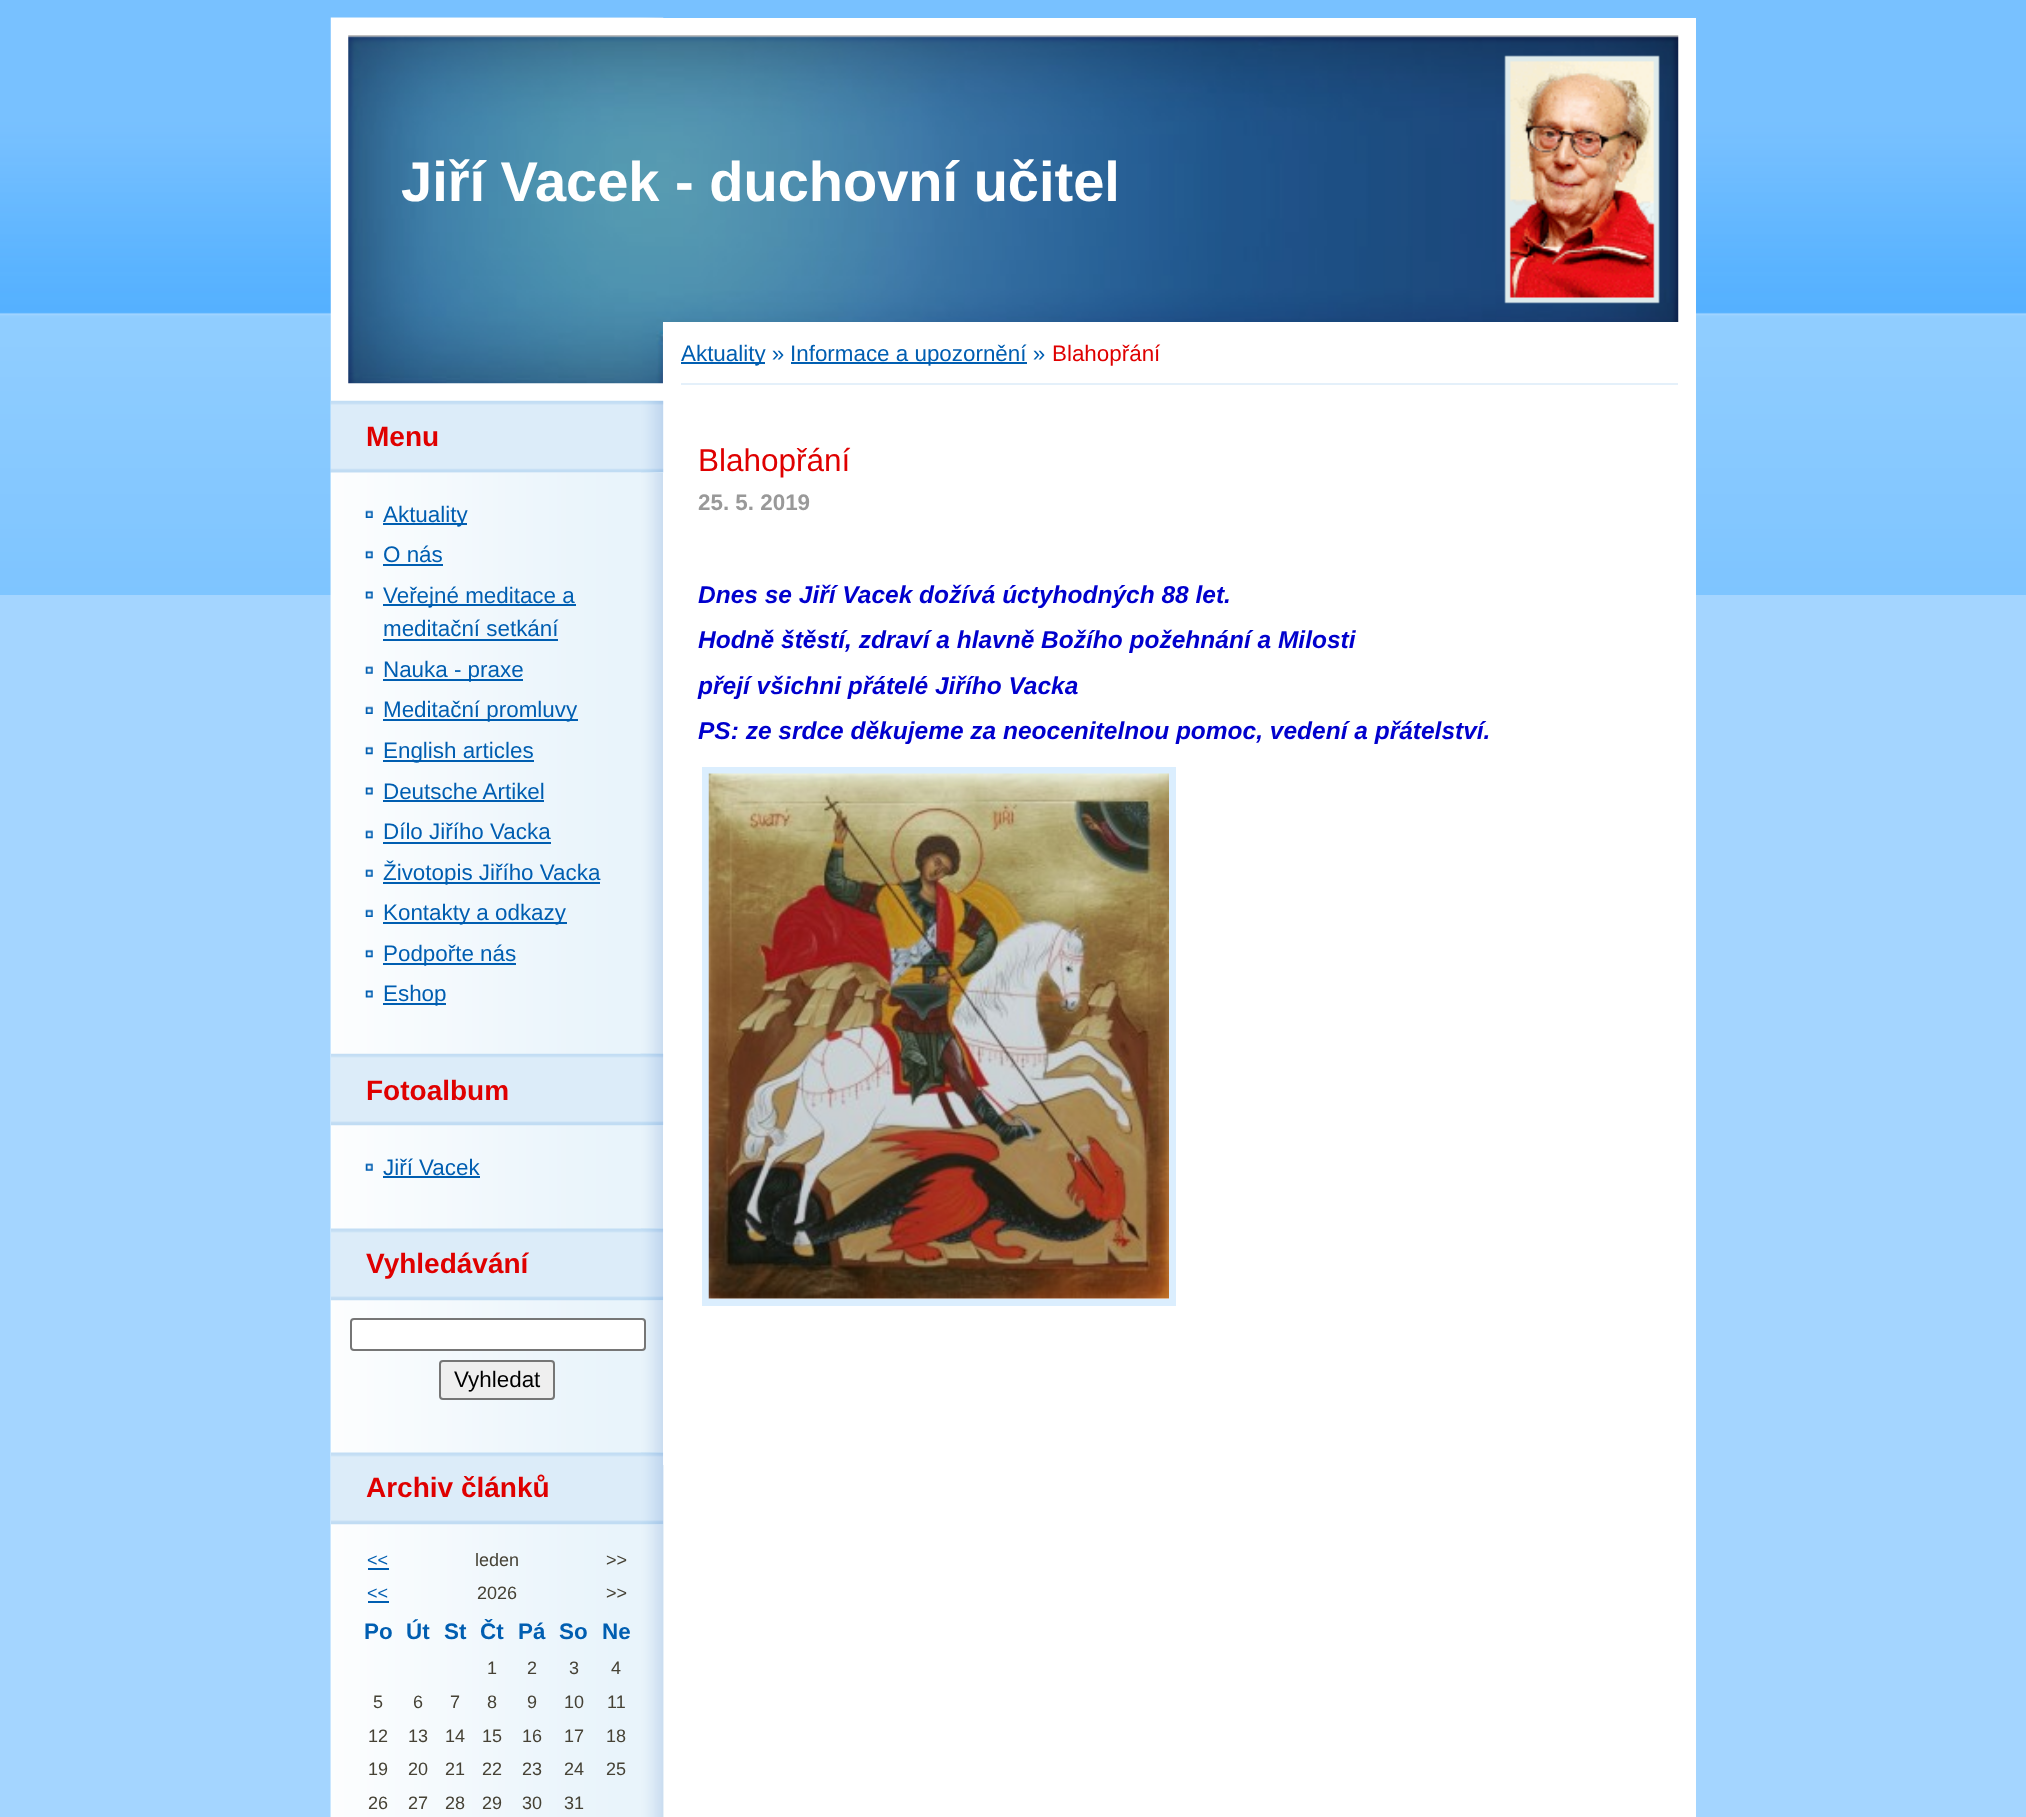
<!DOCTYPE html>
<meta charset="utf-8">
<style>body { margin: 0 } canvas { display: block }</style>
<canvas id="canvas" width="2026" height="1817"></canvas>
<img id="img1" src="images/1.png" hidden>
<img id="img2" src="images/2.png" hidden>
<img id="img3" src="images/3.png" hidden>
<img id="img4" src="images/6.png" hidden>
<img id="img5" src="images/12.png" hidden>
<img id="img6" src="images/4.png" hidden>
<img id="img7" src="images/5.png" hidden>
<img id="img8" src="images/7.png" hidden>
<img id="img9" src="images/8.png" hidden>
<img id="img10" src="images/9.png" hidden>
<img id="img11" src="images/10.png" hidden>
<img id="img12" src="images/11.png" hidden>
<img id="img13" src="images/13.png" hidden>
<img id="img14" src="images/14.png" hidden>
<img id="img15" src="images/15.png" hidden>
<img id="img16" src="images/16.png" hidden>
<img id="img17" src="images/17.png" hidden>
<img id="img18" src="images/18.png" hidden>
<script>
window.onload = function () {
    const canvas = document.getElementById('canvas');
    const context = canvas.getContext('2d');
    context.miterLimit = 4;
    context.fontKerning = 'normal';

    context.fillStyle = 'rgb(164, 213, 255)';
    context.fillRect(0, 0, 2026, 1817);
    context.drawImage(document.getElementById('img1'), 0, 0, 2026, 595);
    context.fillStyle = 'rgb(255, 255, 255)';
    context.fillRect(663, 1465, 1033, 352);
    context.drawImage(document.getElementById('img2'), 330, 17, 334, 1800);
    context.fillRect(331, 18, 1365, 383);
    context.drawImage(document.getElementById('img3'), 348, 35, 1331, 349);
    context.drawImage(document.getElementById('img4'), 330, 472, 316, 582);
    context.fillRect(331, 472, 332, 1);
    context.drawImage(document.getElementById('img5'), 330, 1053, 334, 764);
    context.fillRect(663, 322, 1033, 1143);
    context.drawImage(document.getElementById('img6'), 330, 400, 334, 73);
    context.drawImage(document.getElementById('img7'), 641, 400, 23, 73);
    context.drawImage(document.getElementById('img8'), 365, 510, 8, 8);
    context.fillStyle = 'rgb(0, 94, 177)';
    context.fillRect(383, 523, 84, 2);
    context.drawImage(document.getElementById('img9'), 365, 550, 8, 9);
    context.fillRect(383, 564, 60, 2);
    context.drawImage(document.getElementById('img10'), 365, 591, 8, 8);
    context.fillRect(383, 604, 193, 2);
    context.fillRect(383, 639, 175, 2);
    context.drawImage(document.getElementById('img11'), 365, 666, 8, 8);
    context.fillRect(383, 679, 140, 2);
    context.drawImage(document.getElementById('img8'), 365, 706, 8, 8);
    context.fillRect(383, 719, 195, 2);
    context.drawImage(document.getElementById('img9'), 365, 746, 8, 9);
    context.fillRect(383, 760, 151, 2);
    context.drawImage(document.getElementById('img10'), 365, 787, 8, 8);
    context.fillRect(383, 800, 161, 2);
    context.drawImage(document.getElementById('img12'), 365, 830, 8, 9);
    context.fillRect(383, 842, 168, 2);
    context.drawImage(document.getElementById('img11'), 365, 869, 8, 8);
    context.fillRect(383, 882, 217, 2);
    context.drawImage(document.getElementById('img8'), 365, 909, 8, 8);
    context.fillRect(383, 922, 184, 2);
    context.drawImage(document.getElementById('img9'), 365, 949, 8, 9);
    context.fillRect(383, 963, 133, 2);
    context.drawImage(document.getElementById('img10'), 365, 990, 8, 8);
    context.fillRect(383, 1003, 63, 2);
    context.drawImage(document.getElementById('img13'), 331, 1053, 333, 73);
    context.drawImage(document.getElementById('img14'), 640, 1053, 24, 72);
    context.drawImage(document.getElementById('img11'), 365, 1163, 8, 8);
    context.fillRect(383, 1176, 97, 2);
    context.drawImage(document.getElementById('img15'), 331, 1228, 333, 73);
    context.drawImage(document.getElementById('img16'), 641, 1228, 22, 72);
    context.fillStyle = 'rgb(255, 255, 255)';
    context.beginPath();
    context.roundRect(351, 1319, 294, 31, 3);
    context.fill();
    context.strokeStyle = 'rgb(118, 118, 118)';
    context.lineWidth = 2;
    context.stroke();
    context.fillStyle = 'rgb(239, 239, 239)';
    context.beginPath();
    context.roundRect(440, 1361, 114, 38, 3);
    context.fill();
    context.stroke();
    context.drawImage(document.getElementById('img17'), 331, 1452, 333, 73);
    context.drawImage(document.getElementById('img16'), 641, 1452, 22, 72);
    context.fillStyle = 'rgb(0, 94, 177)';
    context.fillRect(368, 1568, 21, 2);
    context.fillRect(368, 1601, 21, 2);
    context.fillStyle = 'rgb(228, 240, 250)';
    context.fillRect(681, 383, 997, 2);
    context.fillStyle = 'rgb(0, 94, 177)';
    context.fillRect(681, 362, 84, 2);
    context.fillRect(791, 362, 236, 2);
    context.strokeStyle = 'rgb(219, 238, 254)';
    context.lineWidth = 7;
    context.strokeRect(705.5, 770.5, 467, 532);
    context.drawImage(document.getElementById('img18'), 708, 773, 461, 526);
    context.font = 'bold 56px Liberation Sans';
    context.fillStyle = 'rgb(255, 255, 255)';
    context.fillText('Jiří Vacek - duchovní učitel', 401, 201);
    context.font = 'bold 28px Liberation Sans';
    context.fillStyle = 'rgb(223, 0, 0)';
    context.fillText('Menu', 366, 446);
    context.font = '22.4px Liberation Sans';
    context.fillStyle = 'rgb(0, 94, 177)';
    context.fillText('Aktuality', 383, 522);
    context.fillText('O nás', 383, 562);
    context.fillText('Veřejné meditace a', 383, 603);
    context.fillText('meditační setkání', 383, 636);
    context.fillText('Nauka - praxe', 383, 677);
    context.fillText('Meditační promluvy', 383, 717);
    context.fillText('English articles', 383, 758);
    context.fillText('Deutsche Artikel', 383, 799);
    context.fillText('Dílo Jiřího Vacka', 383, 839);
    context.fillText('Životopis Jiřího Vacka', 383, 880);
    context.fillText('Kontakty a odkazy', 383, 920);
    context.fillText('Podpořte nás', 383, 961);
    context.fillText('Eshop', 383, 1001);
    context.font = 'bold 28px Liberation Sans';
    context.fillStyle = 'rgb(223, 0, 0)';
    context.fillText('Fotoalbum', 366, 1100);
    context.font = '22.4px Liberation Sans';
    context.fillStyle = 'rgb(0, 94, 177)';
    context.fillText('Jiří Vacek', 383, 1175);
    context.font = 'bold 28px Liberation Sans';
    context.fillStyle = 'rgb(223, 0, 0)';
    context.fillText('Vyhledávání', 366, 1273);
    context.font = '22.4px Liberation Sans';
    context.fillStyle = 'rgb(0, 0, 0)';
    context.fillText('Vyhledat', 454, 1387);
    context.font = 'bold 28px Liberation Sans';
    context.fillStyle = 'rgb(223, 0, 0)';
    context.fillText('Archiv článků', 366, 1497);
    context.font = '18px Liberation Sans';
    context.fillStyle = 'rgb(0, 94, 177)';
    context.fillText('<<', 367, 1566);
    context.fillStyle = 'rgb(70, 66, 53)';
    context.fillText('leden', 475, 1566);
    context.fillText('>>', 606, 1566);
    context.fillStyle = 'rgb(0, 94, 177)';
    context.fillText('<<', 367, 1599);
    context.fillStyle = 'rgb(70, 66, 53)';
    context.fillText('2026', 477, 1599);
    context.fillText('>>', 606, 1599);
    context.font = 'bold 22.4px Liberation Sans';
    context.fillStyle = 'rgb(0, 94, 177)';
    context.fillText('Po', 364, 1639);
    context.fillText('Út', 406, 1639);
    context.fillText('St', 444, 1639);
    context.fillText('Čt', 480, 1639);
    context.fillText('Pá', 518, 1639);
    context.fillText('So', 559, 1639);
    context.fillText('Ne', 602, 1639);
    context.font = '18px Liberation Sans';
    context.fillStyle = 'rgb(70, 66, 53)';
    context.fillText('1', 487, 1674);
    context.fillText('2', 527, 1674);
    context.fillText('3', 569, 1674);
    context.fillText('4', 611, 1674);
    context.fillText('5', 373, 1708);
    context.fillText('6', 413, 1708);
    context.fillText('7', 450, 1708);
    context.fillText('8', 487, 1708);
    context.fillText('9', 527, 1708);
    context.fillText('10', 564, 1708);
    context.fillText('11', 607, 1708);
    context.fillText('12', 368, 1742);
    context.fillText('13', 408, 1742);
    context.fillText('14', 445, 1742);
    context.fillText('15', 482, 1742);
    context.fillText('16', 522, 1742);
    context.fillText('17', 564, 1742);
    context.fillText('18', 606, 1742);
    context.fillText('19', 368, 1775);
    context.fillText('20', 408, 1775);
    context.fillText('21', 445, 1775);
    context.fillText('22', 482, 1775);
    context.fillText('23', 522, 1775);
    context.fillText('24', 564, 1775);
    context.fillText('25', 606, 1775);
    context.fillText('26', 368, 1809);
    context.fillText('27', 408, 1809);
    context.fillText('28', 445, 1809);
    context.fillText('29', 482, 1809);
    context.fillText('30', 522, 1809);
    context.fillText('31', 564, 1809);
    context.font = '22.4px Liberation Sans';
    context.fillStyle = 'rgb(0, 94, 177)';
    context.fillText('Aktuality »', 681, 361);
    context.fillText('Informace a upozornění »', 790, 361);
    context.fillStyle = 'rgb(223, 0, 0)';
    context.fillText('Blahopřání', 1052, 361);
    context.font = '31.5px Liberation Sans';
    context.fillText('Blahopřání', 698, 471);
    context.font = 'bold 22.4px Liberation Sans';
    context.fillStyle = 'rgb(153, 153, 153)';
    context.fillText('25. 5. 2019', 698, 510);
    context.font = 'italic bold 24.5px Liberation Sans';
    context.fillStyle = 'rgb(0, 0, 205)';
    context.fillText('Dnes se Jiří Vacek dožívá úctyhodných 88 let.', 698, 603);
    context.fillText('Hodně štěstí, zdraví a hlavně Božího požehnání a Milosti', 698, 648);
    context.fillText('přejí všichni přátelé Jiřího Vacka', 698, 694);
    context.fillText('PS: ze srdce děkujeme za neocenitelnou pomoc, vedení a přátelství.', 698, 739);
};
</script>
